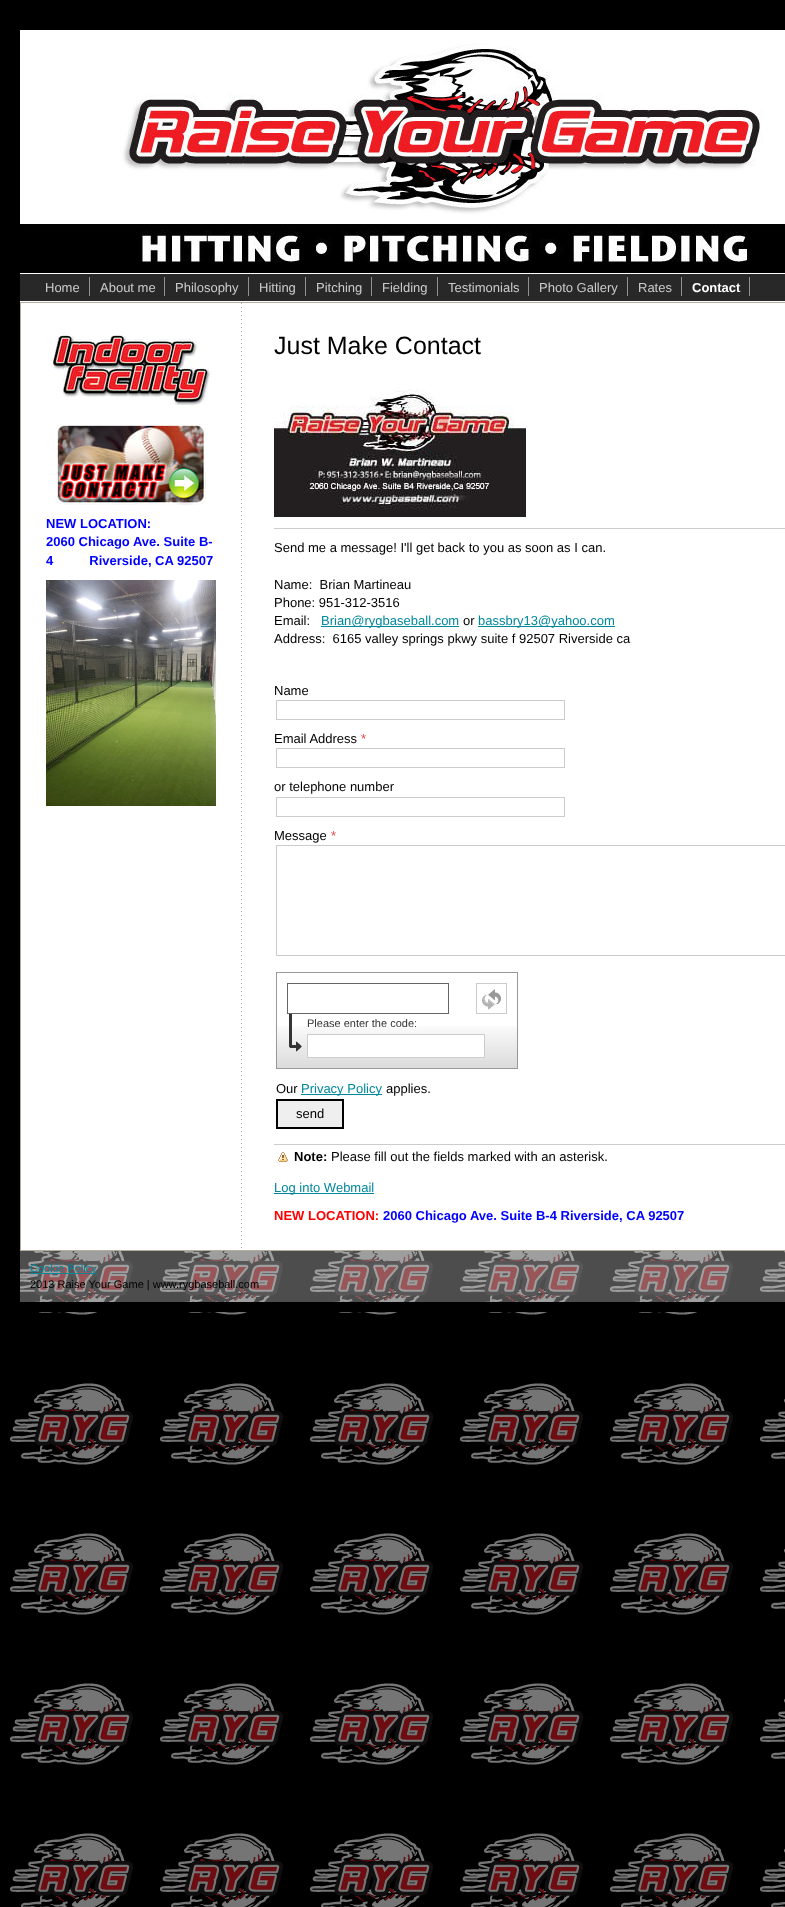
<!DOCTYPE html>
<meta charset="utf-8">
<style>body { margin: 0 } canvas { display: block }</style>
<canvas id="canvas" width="785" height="1907"></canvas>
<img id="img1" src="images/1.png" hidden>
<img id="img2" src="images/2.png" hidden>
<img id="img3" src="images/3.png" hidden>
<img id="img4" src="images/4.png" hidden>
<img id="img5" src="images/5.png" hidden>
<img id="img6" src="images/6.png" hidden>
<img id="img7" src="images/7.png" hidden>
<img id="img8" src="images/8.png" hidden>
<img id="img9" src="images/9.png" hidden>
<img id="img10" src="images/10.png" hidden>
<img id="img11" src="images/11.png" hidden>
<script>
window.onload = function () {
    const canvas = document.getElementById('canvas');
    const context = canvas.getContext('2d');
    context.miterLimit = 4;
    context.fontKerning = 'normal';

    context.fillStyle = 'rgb(255, 255, 255)';
    context.fillRect(0, 0, 785, 1907);
    context.drawImage(document.getElementById('img1'), 0, 0, 785, 1907);
    context.strokeStyle = 'rgb(0, 0, 0)';
    context.lineWidth = 10;
    context.strokeRect(15, 25, 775, 1282);
    context.fillRect(20, 273, 765, 1);
    context.drawImage(document.getElementById('img2'), 20, 30, 765, 235);
    context.fillStyle = 'rgb(40, 40, 40)';
    context.fillRect(20, 274, 765, 27);
    context.fillStyle = 'rgb(144, 144, 144)';
    context.fillRect(89, 277, 1, 19);
    context.fillRect(164, 277, 1, 19);
    context.fillRect(248, 277, 1, 19);
    context.fillRect(305, 277, 1, 19);
    context.fillRect(371, 277, 1, 19);
    context.fillRect(437, 277, 1, 19);
    context.fillRect(528, 277, 1, 19);
    context.fillRect(627, 277, 1, 19);
    context.fillRect(681, 277, 1, 19);
    context.fillRect(749, 277, 1, 19);
    context.fillStyle = 'rgb(255, 255, 255)';
    context.fillRect(20, 301, 765, 1);
    context.fillRect(21, 303, 764, 947);
    context.drawImage(document.getElementById('img3'), 241, 303, 1, 945);
    context.strokeStyle = 'rgb(180, 173, 158)';
    context.lineWidth = 1;
    context.strokeRect(20.5, 302.5, 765, 948);
    context.drawImage(document.getElementById('img4'), 50, 331, 161, 75);
    context.drawImage(document.getElementById('img5'), 56, 424, 150, 81);
    context.drawImage(document.getElementById('img6'), 46, 580, 170, 226);
    context.drawImage(document.getElementById('img7'), 274, 389, 252, 128);
    context.fillStyle = 'rgb(204, 204, 204)';
    context.fillRect(274, 528, 511, 1);
    context.fillStyle = 'rgb(0, 136, 156)';
    context.fillRect(321, 626, 138, 1);
    context.fillRect(478, 626, 137, 1);
    context.strokeStyle = 'rgb(204, 204, 204)';
    context.strokeRect(276.5, 700.5, 288, 19);
    context.strokeRect(276.5, 748.5, 288, 19);
    context.strokeRect(276.5, 797.5, 288, 19);
    context.strokeRect(276.5, 845.5, 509, 110);
    context.drawImage(document.getElementById('img8'), 277, 1026, 240, 42);
    context.strokeStyle = 'rgb(153, 153, 153)';
    context.strokeRect(276.5, 972.5, 241, 96);
    context.strokeStyle = 'rgb(102, 102, 102)';
    context.strokeRect(287.5, 983.5, 161, 30);
    context.drawImage(document.getElementById('img9'), 482, 989, 19, 21);
    context.strokeStyle = 'rgb(204, 204, 204)';
    context.strokeRect(476.5, 983.5, 30, 30);
    context.drawImage(document.getElementById('img10'), 289, 1014, 13, 38);
    context.fillStyle = 'rgb(255, 255, 255)';
    context.beginPath();
    context.rect(307.5, 1034.5, 177, 23);
    context.fill();
    context.stroke();
    context.fillStyle = 'rgb(0, 136, 156)';
    context.fillRect(301, 1094, 81, 1);
    context.fillStyle = 'rgb(239, 239, 239)';
    context.beginPath();
    context.rect(277, 1100, 66, 28);
    context.fill();
    context.strokeStyle = 'rgb(0, 0, 0)';
    context.lineWidth = 2;
    context.stroke();
    context.drawImage(document.getElementById('img11'), 278, 1152, 10, 10);
    context.fillStyle = 'rgb(204, 204, 204)';
    context.fillRect(274, 1144, 511, 1);
    context.fillStyle = 'rgb(0, 136, 156)';
    context.fillRect(274, 1193, 100, 1);
    context.fillStyle = 'rgba(255, 255, 255, 0.3)';
    context.fillRect(20, 1251, 765, 51);
    context.fillStyle = 'rgb(0, 136, 156)';
    context.fillRect(30, 1273, 67, 1);
    context.font = '13px Liberation Sans';
    context.fillStyle = 'rgb(204, 204, 204)';
    context.fillText('Home', 45, 292);
    context.fillText('About me', 100, 292);
    context.fillText('Philosophy', 175, 292);
    context.fillText('Hitting', 259, 292);
    context.fillText('Pitching', 316, 292);
    context.fillText('Fielding', 382, 292);
    context.fillText('Testimonials', 448, 292);
    context.fillText('Photo Gallery', 539, 292);
    context.fillText('Rates', 638, 292);
    context.font = 'bold 13px Liberation Sans';
    context.fillStyle = 'rgb(255, 255, 255)';
    context.fillText('Contact', 692, 292);
    context.fillStyle = 'rgb(0, 0, 255)';
    context.fillText('NEW LOCATION:', 46, 528);
    context.fillText('2060 Chicago Ave. Suite B-', 46, 546);
    context.fillText('4          Riverside, CA 92507', 46, 565);
    context.font = '25px Liberation Sans';
    context.fillStyle = 'rgb(0, 0, 0)';
    context.fillText('Just Make Contact', 274, 354);
    context.font = '13px Liberation Sans';
    context.fillText('Send me a message! I\'ll get back to you as soon as I can.', 274, 552);
    context.fillText('Name:  Brian Martineau', 274, 589);
    context.fillText('Phone: 951-312-3516', 274, 607);
    context.fillText('Email:', 274, 625);
    context.fillStyle = 'rgb(0, 136, 156)';
    context.fillText('Brian@rygbaseball.com', 321, 625);
    context.fillStyle = 'rgb(0, 0, 0)';
    context.fillText('or', 463, 625);
    context.fillStyle = 'rgb(0, 136, 156)';
    context.fillText('bassbry13@yahoo.com', 478, 625);
    context.fillStyle = 'rgb(0, 0, 0)';
    context.fillText('Address:  6165 valley springs pkwy suite f 92507 Riverside ca', 274, 643);
    context.fillText('Name', 274, 695);
    context.fillText('Email Address', 274, 743);
    context.fillStyle = 'rgb(235, 67, 62)';
    context.fillText('*', 361, 743);
    context.fillStyle = 'rgb(0, 0, 0)';
    context.fillText('or telephone number', 274, 791);
    context.fillText('Message', 274, 840);
    context.fillStyle = 'rgb(235, 67, 62)';
    context.fillText('*', 331, 840);
    context.font = '11px Liberation Sans';
    context.fillStyle = 'rgb(51, 51, 51)';
    context.fillText('Please enter the code:', 307, 1027);
    context.font = '13px Liberation Sans';
    context.fillStyle = 'rgb(0, 0, 0)';
    context.fillText('Our', 276, 1093);
    context.fillStyle = 'rgb(0, 136, 156)';
    context.fillText('Privacy Policy', 301, 1093);
    context.fillStyle = 'rgb(0, 0, 0)';
    context.fillText('applies.', 386, 1093);
    context.fillText('send', 296, 1118);
    context.font = 'bold 13px Liberation Sans';
    context.fillText('Note:', 294, 1161);
    context.font = '13px Liberation Sans';
    context.fillText('Please fill out the fields marked with an asterisk.', 331, 1161);
    context.fillStyle = 'rgb(0, 136, 156)';
    context.fillText('Log into Webmail', 274, 1192);
    context.font = 'bold 13px Liberation Sans';
    context.fillStyle = 'rgb(255, 0, 0)';
    context.fillText('NEW LOCATION:', 274, 1220);
    context.fillStyle = 'rgb(0, 0, 255)';
    context.fillText('2060 Chicago Ave. Suite B-4 Riverside, CA 92507', 383, 1220);
    context.font = '11px Liberation Sans';
    context.fillStyle = 'rgb(0, 136, 156)';
    context.fillText('Cookie Policy', 30, 1272);
    context.fillStyle = 'rgb(0, 0, 0)';
    context.fillText('2013 Raise Your Game | www.rygbaseball.com', 30, 1288);
};
</script>
